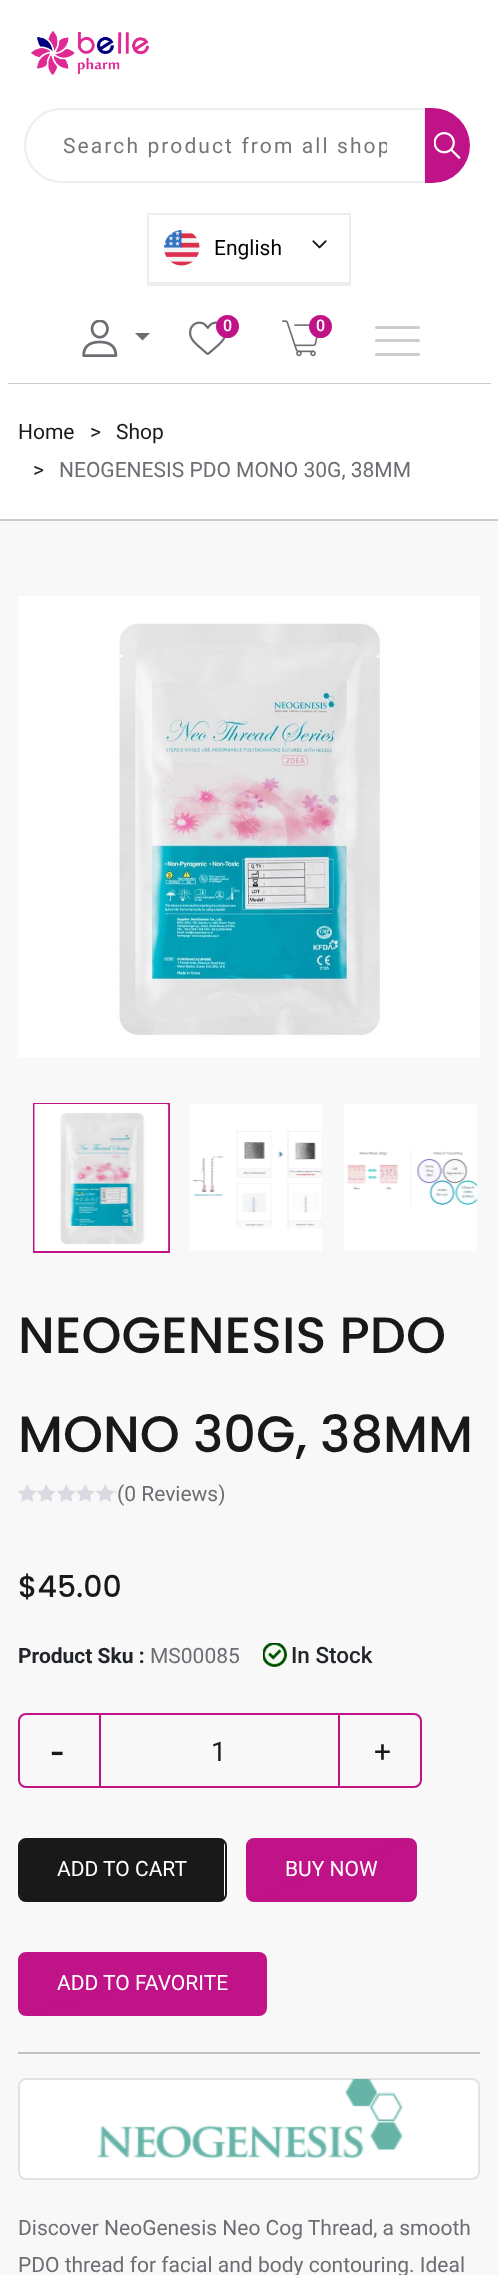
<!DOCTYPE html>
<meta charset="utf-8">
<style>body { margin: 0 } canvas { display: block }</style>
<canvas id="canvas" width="498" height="2275"></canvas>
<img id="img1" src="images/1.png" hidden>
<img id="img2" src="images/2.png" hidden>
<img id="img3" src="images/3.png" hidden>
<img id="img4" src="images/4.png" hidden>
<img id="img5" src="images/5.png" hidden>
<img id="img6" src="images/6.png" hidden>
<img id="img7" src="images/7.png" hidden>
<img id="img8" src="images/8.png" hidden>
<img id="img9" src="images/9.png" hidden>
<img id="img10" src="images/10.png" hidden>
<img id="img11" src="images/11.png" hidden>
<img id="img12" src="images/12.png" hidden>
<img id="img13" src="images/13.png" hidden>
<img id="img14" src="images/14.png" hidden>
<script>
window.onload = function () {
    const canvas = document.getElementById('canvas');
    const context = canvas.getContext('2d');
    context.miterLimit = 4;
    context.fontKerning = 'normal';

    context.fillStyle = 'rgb(255, 255, 255)';
    context.fillRect(0, 0, 498, 2275);
    context.fillStyle = 'rgb(204, 204, 204)';
    context.fillRect(8, 383, 483, 1);
    context.drawImage(document.getElementById('img1'), 31, 30, 118, 45);
    context.beginPath();
    context.roundRect(25, 109, 400, 73, [36.5, 0, 0, 36.5]);
    context.strokeStyle = 'rgb(238, 238, 238)';
    context.lineWidth = 2;
    context.stroke();
    context.fillStyle = 'rgb(192, 19, 136)';
    context.beginPath();
    context.roundRect(425, 108, 45, 75, [0, 37.5, 37.5, 0]);
    context.fill();
    context.drawImage(document.getElementById('img2'), 434, 132, 27, 27);
    context.fillStyle = 'rgb(238, 238, 238)';
    context.fillRect(147, 284, 204, 2);
    context.strokeRect(148, 214, 202, 69);
    context.drawImage(document.getElementById('img3'), 164, 230, 36, 36);
    context.drawImage(document.getElementById('img4'), 312, 240, 15, 9);
    context.drawImage(document.getElementById('img5'), 82, 320, 36, 37);
    context.fillStyle = 'rgb(109, 109, 115)';
    context.beginPath();
    context.moveTo(135, 333);
    context.lineTo(150, 333);
    context.lineTo(142.5, 340.5);
    context.closePath();
    context.fill();
    context.drawImage(document.getElementById('img6'), 189, 321, 37, 34);
    context.fillStyle = 'rgb(192, 19, 136)';
    context.beginPath();
    context.arc(227.5, 326.5, 11.5, 0, 2 * Math.PI);
    context.fill();
    context.drawImage(document.getElementById('img7'), 282, 320, 36, 37);
    context.beginPath();
    context.arc(320.5, 326.5, 11.5, 0, 2 * Math.PI);
    context.fill();
    context.fillStyle = 'rgb(204, 204, 204)';
    context.beginPath();
    context.roundRect(375, 326, 45, 3, 1.5);
    context.fill();
    context.beginPath();
    context.roundRect(375, 339, 45, 3, 1.5);
    context.fill();
    context.beginPath();
    context.roundRect(375, 353, 45, 3, 1.5);
    context.fill();
    context.fillRect(0, 519, 498, 2);
    context.fillStyle = 'rgb(248, 248, 248)';
    context.fillRect(0, 521, 498, 1754);
    context.drawImage(document.getElementById('img8'), 18, 596, 462, 462);
    context.strokeStyle = 'rgb(192, 19, 136)';
    context.strokeRect(34, 1104, 135, 148);
    context.drawImage(document.getElementById('img9'), 34, 1104, 135, 147);
    context.drawImage(document.getElementById('img10'), 189, 1104, 133, 147);
    context.drawImage(document.getElementById('img11'), 344, 1104, 134, 147);
    context.drawImage(document.getElementById('img12'), 18, 1485, 99, 17);
    context.drawImage(document.getElementById('img13'), 263, 1643, 24, 24);
    context.beginPath();
    context.roundRect(19, 1714, 402, 73, 7);
    context.stroke();
    context.fillStyle = 'rgb(192, 19, 136)';
    context.fillRect(338, 1715, 2, 72);
    context.fillRect(99, 1715, 2, 72);
    context.fillStyle = 'rgb(255, 255, 255)';
    context.beginPath();
    context.roundRect(19, 1839, 207, 62, 7);
    context.fill();
    context.strokeStyle = 'rgb(25, 25, 25)';
    context.stroke();
    context.fillStyle = 'rgb(25, 25, 25)';
    context.beginPath();
    context.moveTo(26, 1839);
    context.bezierCurveTo(23, 1839, 20, 1842, 20, 1845);
    context.lineTo(20, 1895);
    context.bezierCurveTo(20, 1898, 22, 1900, 25, 1901);
    context.lineTo(221, 1840);
    context.lineTo(219, 1839);
    context.closePath();
    context.fill();
    context.beginPath();
    context.moveTo(224, 1843);
    context.bezierCurveTo(224, 1841, 222, 1839, 220, 1839);
    context.lineTo(23, 1900);
    context.lineTo(26, 1901);
    context.lineTo(219, 1901);
    context.bezierCurveTo(221, 1901, 224, 1900, 224, 1897);
    context.closePath();
    context.fill();
    context.beginPath();
    context.roundRect(247, 1839, 169, 62, 7);
    context.strokeStyle = 'rgb(192, 19, 136)';
    context.stroke();
    context.fillStyle = 'rgb(192, 19, 136)';
    context.beginPath();
    context.moveTo(254, 1839);
    context.bezierCurveTo(251, 1839, 248, 1842, 248, 1845);
    context.lineTo(248, 1895);
    context.bezierCurveTo(248, 1898, 250, 1900, 252, 1901);
    context.lineTo(413, 1840);
    context.lineTo(410, 1839);
    context.closePath();
    context.fill();
    context.beginPath();
    context.moveTo(415, 1842);
    context.bezierCurveTo(415, 1841, 413, 1840, 411, 1839);
    context.lineTo(251, 1900);
    context.lineTo(254, 1901);
    context.lineTo(410, 1901);
    context.bezierCurveTo(412, 1901, 414, 1900, 415, 1898);
    context.closePath();
    context.fill();
    context.beginPath();
    context.roundRect(19, 1953, 247, 62, 7);
    context.stroke();
    context.beginPath();
    context.moveTo(26, 1953);
    context.bezierCurveTo(23, 1953, 20, 1956, 20, 1959);
    context.lineTo(20, 2009);
    context.bezierCurveTo(20, 2012, 22, 2015, 25, 2015);
    context.lineTo(262, 1953);
    context.lineTo(260, 1953);
    context.closePath();
    context.fill();
    context.beginPath();
    context.moveTo(266, 1957);
    context.bezierCurveTo(265, 1955, 263, 1953, 260, 1953);
    context.lineTo(24, 2014);
    context.lineTo(26, 2015);
    context.lineTo(260, 2015);
    context.bezierCurveTo(263, 2015, 265, 2013, 266, 2011);
    context.closePath();
    context.fill();
    context.fillStyle = 'rgb(194, 195, 196)';
    context.fillRect(18, 2052, 462, 2);
    context.fillStyle = 'rgb(255, 255, 255)';
    context.beginPath();
    context.roundRect(19, 2079, 460, 100, 7);
    context.fill();
    context.strokeStyle = 'rgb(226, 226, 226)';
    context.stroke();
    context.drawImage(document.getElementById('img14'), 97, 2079, 305, 80);
    context.save();
    context.beginPath();
    context.rect(63, 134, 324, 24);
    context.clip();
    context.letterSpacing = '2.1px';
    context.font = '21px Roboto';
    context.fillStyle = 'rgb(117, 117, 117)';
    context.fillText('Search product from all shop', 63, 153);
    context.restore();
    context.font = '21px Roboto';
    context.fillStyle = 'rgb(0, 0, 0)';
    context.fillText('English', 214, 255);
    context.font = '500 16px Roboto';
    context.fillStyle = 'rgb(255, 255, 255)';
    context.fillText('0', 223, 331);
    context.fillText('0', 316, 331);
    context.font = '21px Roboto';
    context.fillStyle = 'rgb(25, 25, 25)';
    context.fillText('Home', 18, 439);
    context.fillText('>', 90, 439);
    context.fillText('Shop', 116, 439);
    context.fillText('>', 33, 477);
    context.fillStyle = 'rgb(109, 109, 115)';
    context.fillText('NEOGENESIS PDO MONO 30G, 38MM', 59, 477);
    context.font = '500 51px Poppins';
    context.fillStyle = 'rgb(25, 25, 25)';
    context.fillText('NEOGENESIS PDO', 18, 1353);
    context.fillText('MONO 30G, 38MM', 18, 1452);
    context.font = '21px Roboto';
    context.fillStyle = 'rgb(109, 109, 115)';
    context.fillText('(0 Reviews)', 117, 1501);
    context.font = '500 30px Poppins';
    context.fillStyle = 'rgb(25, 25, 25)';
    context.fillText('$45.00', 18, 1597);
    context.font = 'bold 21px Roboto';
    context.fillStyle = 'rgb(33, 37, 41)';
    context.fillText('Product Sku :', 18, 1663);
    context.font = '21px Roboto';
    context.fillStyle = 'rgb(109, 109, 115)';
    context.fillText('MS00085', 150, 1663);
    context.font = '500 22.5px Roboto';
    context.fillStyle = 'rgb(33, 37, 41)';
    context.fillText('In Stock', 291, 1663);
    context.font = '45px Roboto';
    context.fillStyle = 'rgb(25, 25, 25)';
    context.fillText('-', 51, 1767);
    context.letterSpacing = '2.1px';
    context.font = '27px Roboto';
    context.fillText('1', 211, 1761);
    context.letterSpacing = '0px';
    context.font = '30px Roboto';
    context.fillText('+', 374, 1762);
    context.font = '21px Roboto';
    context.fillStyle = 'rgb(255, 255, 255)';
    context.fillText('ADD TO CART', 57, 1876);
    context.fillText('BUY NOW', 285, 1876);
    context.fillText('ADD TO FAVORITE', 57, 1990);
    context.fillStyle = 'rgb(109, 109, 115)';
    context.fillText('Discover NeoGenesis Neo Cog Thread, a smooth', 18, 2235);
    context.fillText('PDO thread for facial and body contouring. Ideal', 18, 2272);
};
</script>
